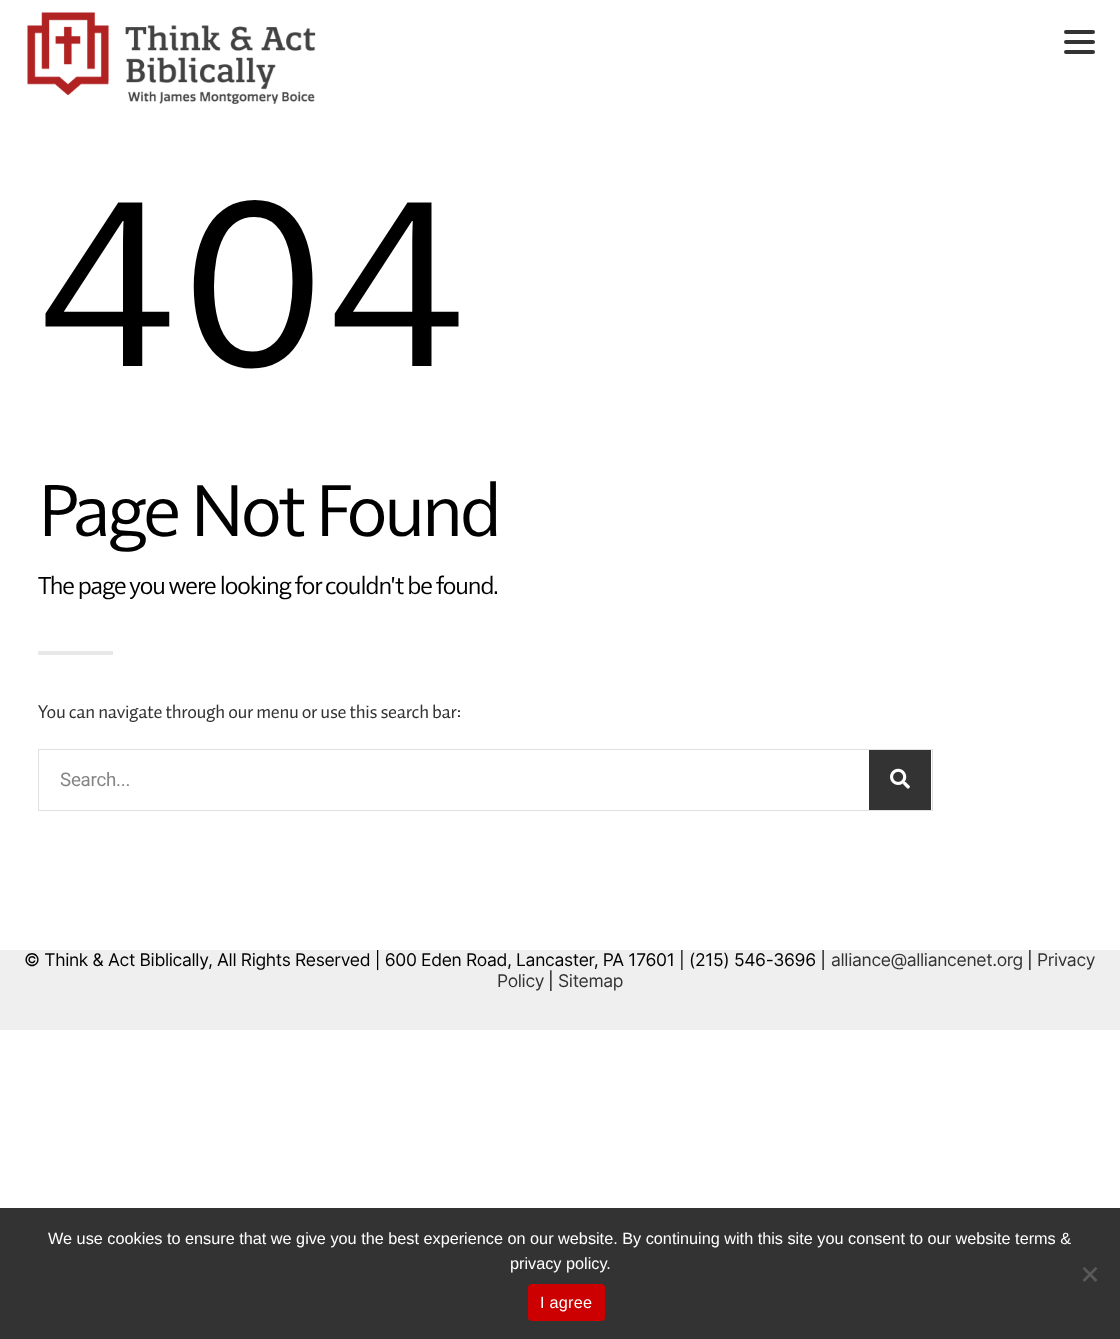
<!DOCTYPE html>
<meta charset="utf-8">
<style>body { margin: 0 } canvas { display: block }</style>
<canvas id="canvas" width="1120" height="1339"></canvas>
<img id="img1" src="images/1.png" hidden>
<img id="img2" src="images/2.png" hidden>
<script>
window.onload = function () {
    const canvas = document.getElementById('canvas');
    const context = canvas.getContext('2d');
    context.miterLimit = 4;
    context.fontKerning = 'normal';

    context.fillStyle = 'rgb(255, 255, 255)';
    context.fillRect(0, 0, 1120, 1339);
    context.drawImage(document.getElementById('img1'), 27, 12, 289, 92);
    context.fillStyle = 'rgb(51, 51, 51)';
    context.beginPath();
    context.roundRect(1064, 40, 31, 4, 2);
    context.fill();
    context.beginPath();
    context.roundRect(1064, 30, 31, 4, 2);
    context.fill();
    context.beginPath();
    context.roundRect(1064, 50, 31, 4, 2);
    context.fill();
    context.fillStyle = 'rgb(232, 232, 232)';
    context.fillRect(38, 651, 75, 4);
    context.strokeStyle = 'rgb(224, 224, 224)';
    context.strokeRect(38.5, 749.5, 894, 61);
    context.fillStyle = 'rgb(51, 51, 51)';
    context.fillRect(869, 750, 62, 60);
    context.drawImage(document.getElementById('img2'), 890, 768, 20, 21);
    context.fillStyle = 'rgb(239, 239, 239)';
    context.fillRect(0, 950, 1120, 80);
    context.fillStyle = 'rgb(51, 51, 51)';
    context.fillRect(0, 1208, 1120, 131);
    context.fillStyle = 'rgb(90, 90, 90)';
    context.beginPath();
    context.moveTo(1095.5, 1267);
    context.lineTo(1097.5, 1268.5);
    context.lineTo(1084.5, 1282);
    context.lineTo(1082.5, 1280);
    context.closePath();
    context.fill();
    context.beginPath();
    context.moveTo(1082.5, 1268.5);
    context.lineTo(1084.5, 1267);
    context.lineTo(1097.5, 1280);
    context.lineTo(1095.5, 1282);
    context.closePath();
    context.fill();
    context.fillStyle = 'rgb(204, 0, 0)';
    context.beginPath();
    context.roundRect(528, 1284, 77, 37, 4);
    context.fill();
    context.letterSpacing = '-0.34px';
    context.font = '250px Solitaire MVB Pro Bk';
    context.fillStyle = 'rgb(0, 0, 0)';
    context.fillText('404', 38, 366);
    context.letterSpacing = '-3.1px';
    context.font = '75px Solitaire MVB Pro Bk';
    context.fillText('Page Not Found', 38, 536);
    context.letterSpacing = '-1.05px';
    context.font = '25px Solitaire MVB Pro Bk';
    context.fillText('The page you were looking for couldn\'t be found.', 38, 594);
    context.letterSpacing = '-0.34px';
    context.font = '18.75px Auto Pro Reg';
    context.fillStyle = 'rgb(51, 51, 51)';
    context.fillText('You can navigate through our menu or use this search bar:', 38, 718);
    context.letterSpacing = '-0.25px';
    context.font = '18.75px Roboto';
    context.fillStyle = 'rgb(133, 133, 133)';
    context.fillText('Search...', 60, 786);
    context.letterSpacing = '-0.34px';
    context.font = '17.5px Inter';
    context.fillStyle = 'rgb(0, 0, 0)';
    context.fillText('© Think & Act Biblically, All Rights Reserved | 600 Eden Road, Lancaster, PA 17601 | (215) 546-3696 |', 24, 966);
    context.fillStyle = 'rgb(51, 51, 51)';
    context.fillText('alliance@alliancenet.org', 831, 966);
    context.fillStyle = 'rgb(0, 0, 0)';
    context.fillText('|', 1027, 966);
    context.fillStyle = 'rgb(255, 255, 255)';
    context.fillRect(377, 949, 654, 1);
    context.fillStyle = 'rgb(51, 51, 51)';
    context.fillText('Privacy', 1037, 966);
    context.fillText('Policy', 497, 987);
    context.fillStyle = 'rgb(0, 0, 0)';
    context.fillText('|', 548, 987);
    context.fillStyle = 'rgb(51, 51, 51)';
    context.fillText('Sitemap', 558, 987);
    context.letterSpacing = '0px';
    context.font = '16.25px Liberation Sans';
    context.fillStyle = 'rgb(255, 255, 255)';
    context.fillText('We use cookies to ensure that we give you the best experience on our website. By continuing with this site you consent to our website terms &', 48, 1244);
    context.fillText('privacy policy.', 510, 1269);
    context.letterSpacing = '0.25px';
    context.fillText('I agree', 540, 1308);
};
</script>
